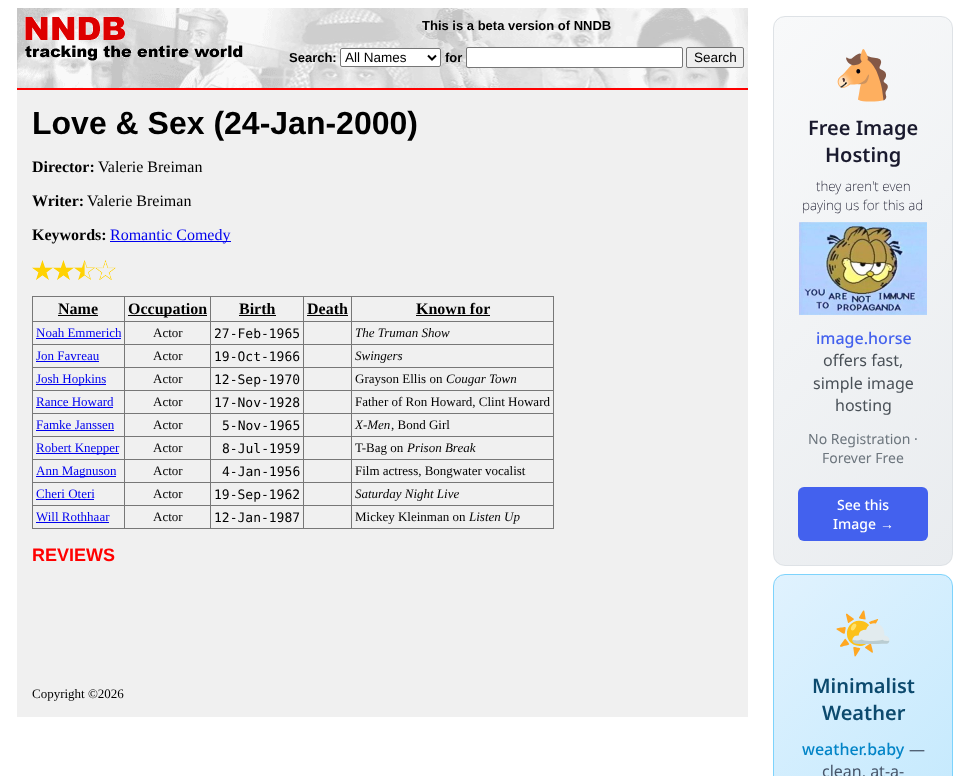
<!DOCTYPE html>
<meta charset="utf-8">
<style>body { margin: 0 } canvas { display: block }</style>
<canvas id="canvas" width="970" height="776"></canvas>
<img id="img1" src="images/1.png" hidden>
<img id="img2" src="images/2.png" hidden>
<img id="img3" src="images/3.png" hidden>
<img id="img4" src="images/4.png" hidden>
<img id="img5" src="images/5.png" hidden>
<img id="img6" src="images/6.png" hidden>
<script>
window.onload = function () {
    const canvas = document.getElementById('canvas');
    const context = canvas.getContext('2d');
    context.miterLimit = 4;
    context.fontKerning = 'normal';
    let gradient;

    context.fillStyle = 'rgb(255, 255, 255)';
    context.fillRect(0, 0, 970, 776);
    context.drawImage(document.getElementById('img1'), 17, 8, 731, 80);
    context.drawImage(document.getElementById('img2'), 25, 17, 218, 44);
    context.beginPath();
    context.roundRect(340.5, 48.5, 100, 18, 1.5);
    context.fill();
    context.strokeStyle = 'rgb(118, 118, 118)';
    context.stroke();
    context.beginPath();
    context.moveTo(428, 55.5);
    context.lineTo(432, 59.5);
    context.lineTo(436, 55.5);
    context.strokeStyle = 'rgb(0, 0, 0)';
    context.lineWidth = 2;
    context.stroke();
    context.beginPath();
    context.roundRect(466.5, 47.5, 216, 20, 1.5);
    context.fill();
    context.strokeStyle = 'rgb(118, 118, 118)';
    context.lineWidth = 1;
    context.stroke();
    context.fillStyle = 'rgb(239, 239, 239)';
    context.beginPath();
    context.roundRect(686.5, 47.5, 57, 20, 1.5);
    context.fill();
    context.stroke();
    context.fillStyle = 'rgb(255, 0, 0)';
    context.fillRect(17, 88, 731, 2);
    context.fillStyle = 'rgb(240, 240, 240)';
    context.fillRect(17, 90, 731, 627);
    context.fillStyle = 'rgb(0, 0, 238)';
    context.fillRect(110, 241, 121, 1);
    context.drawImage(document.getElementById('img3'), 32, 260, 21, 20);
    context.drawImage(document.getElementById('img3'), 53, 260, 21, 20);
    context.drawImage(document.getElementById('img4'), 74, 260, 21, 20);
    context.drawImage(document.getElementById('img5'), 95, 260, 21, 20);
    context.fillStyle = 'rgb(119, 119, 119)';
    context.fillRect(32, 296, 522, 1);
    context.fillRect(553, 296, 1, 233);
    context.fillRect(32, 528, 522, 1);
    context.fillRect(32, 296, 1, 233);
    context.fillStyle = 'rgb(0, 0, 0)';
    context.fillRect(58, 315, 40, 1);
    context.fillStyle = 'rgb(119, 119, 119)';
    context.fillRect(351, 321, 203, 1);
    context.fillRect(351, 344, 203, 1);
    context.fillRect(351, 367, 203, 1);
    context.fillRect(351, 390, 203, 1);
    context.fillRect(351, 413, 203, 1);
    context.fillRect(351, 436, 203, 1);
    context.fillRect(351, 459, 203, 1);
    context.fillRect(351, 482, 203, 1);
    context.fillRect(351, 505, 203, 1);
    context.fillRect(351, 505, 1, 24);
    context.fillRect(303, 505, 49, 1);
    context.fillRect(351, 482, 1, 24);
    context.fillRect(303, 482, 49, 1);
    context.fillRect(351, 459, 1, 24);
    context.fillRect(303, 459, 49, 1);
    context.fillRect(351, 436, 1, 24);
    context.fillRect(303, 436, 49, 1);
    context.fillRect(351, 413, 1, 24);
    context.fillRect(303, 413, 49, 1);
    context.fillRect(351, 390, 1, 24);
    context.fillRect(303, 390, 49, 1);
    context.fillRect(351, 367, 1, 24);
    context.fillRect(303, 367, 49, 1);
    context.fillRect(351, 344, 1, 24);
    context.fillRect(303, 344, 49, 1);
    context.fillRect(351, 321, 1, 24);
    context.fillRect(303, 321, 49, 1);
    context.fillRect(303, 505, 1, 24);
    context.fillRect(210, 505, 94, 1);
    context.fillRect(303, 482, 1, 24);
    context.fillRect(210, 482, 94, 1);
    context.fillRect(303, 459, 1, 24);
    context.fillRect(210, 459, 94, 1);
    context.fillRect(303, 436, 1, 24);
    context.fillRect(210, 436, 94, 1);
    context.fillRect(303, 413, 1, 24);
    context.fillRect(210, 413, 94, 1);
    context.fillRect(303, 390, 1, 24);
    context.fillRect(210, 390, 94, 1);
    context.fillRect(303, 367, 1, 24);
    context.fillRect(210, 367, 94, 1);
    context.fillRect(303, 344, 1, 24);
    context.fillRect(210, 344, 94, 1);
    context.fillRect(303, 321, 1, 24);
    context.fillRect(210, 321, 94, 1);
    context.fillRect(210, 505, 1, 24);
    context.fillRect(124, 505, 87, 1);
    context.fillRect(210, 482, 1, 24);
    context.fillRect(124, 482, 87, 1);
    context.fillRect(210, 459, 1, 24);
    context.fillRect(124, 459, 87, 1);
    context.fillRect(210, 436, 1, 24);
    context.fillRect(124, 436, 87, 1);
    context.fillRect(210, 413, 1, 24);
    context.fillRect(124, 413, 87, 1);
    context.fillRect(210, 390, 1, 24);
    context.fillRect(124, 390, 87, 1);
    context.fillRect(210, 367, 1, 24);
    context.fillRect(124, 367, 87, 1);
    context.fillRect(210, 344, 1, 24);
    context.fillRect(124, 344, 87, 1);
    context.fillRect(210, 321, 1, 24);
    context.fillRect(124, 321, 87, 1);
    context.fillRect(124, 505, 1, 24);
    context.fillRect(32, 505, 93, 1);
    context.fillRect(124, 482, 1, 24);
    context.fillRect(32, 482, 93, 1);
    context.fillRect(124, 459, 1, 24);
    context.fillRect(32, 459, 93, 1);
    context.fillRect(124, 436, 1, 24);
    context.fillRect(32, 436, 93, 1);
    context.fillRect(124, 413, 1, 24);
    context.fillRect(32, 413, 93, 1);
    context.fillRect(124, 390, 1, 24);
    context.fillRect(32, 390, 93, 1);
    context.fillRect(124, 367, 1, 24);
    context.fillRect(32, 367, 93, 1);
    context.fillRect(124, 344, 1, 24);
    context.fillRect(32, 344, 93, 1);
    context.fillRect(124, 321, 1, 24);
    context.fillRect(32, 321, 93, 1);
    context.fillRect(124, 296, 1, 26);
    context.fillStyle = 'rgb(0, 0, 0)';
    context.fillRect(128, 315, 79, 1);
    context.fillStyle = 'rgb(119, 119, 119)';
    context.fillRect(210, 296, 1, 26);
    context.fillStyle = 'rgb(0, 0, 0)';
    context.fillRect(239, 315, 37, 1);
    context.fillStyle = 'rgb(119, 119, 119)';
    context.fillRect(303, 296, 1, 26);
    context.fillStyle = 'rgb(0, 0, 0)';
    context.fillRect(307, 315, 41, 1);
    context.fillStyle = 'rgb(119, 119, 119)';
    context.fillRect(351, 296, 1, 26);
    context.fillStyle = 'rgb(0, 0, 0)';
    context.fillRect(416, 315, 74, 1);
    context.fillStyle = 'rgb(0, 0, 238)';
    context.fillRect(36, 338, 85, 1);
    context.fillRect(36, 361, 63, 1);
    context.fillRect(36, 384, 70, 1);
    context.fillRect(36, 407, 77, 1);
    context.fillRect(36, 430, 78, 1);
    context.fillRect(36, 453, 83, 1);
    context.fillRect(36, 476, 80, 1);
    context.fillRect(36, 499, 58, 1);
    context.fillRect(36, 522, 73, 1);
    context.save();
    context.beginPath();
    context.roundRect(773, 16, 180, 550, 12);
    context.clip();
    gradient = context.createLinearGradient(682, 110, 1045, 473);
    gradient.addColorStop(0, 'rgb(248, 249, 250)');
    gradient.addColorStop(1, 'rgb(233, 236, 239)');
    context.fillStyle = gradient;
    context.fillRect(774, 17, 178, 548);
    context.restore();
    context.beginPath();
    context.roundRect(773.5, 16.5, 179, 549, 11.5);
    context.strokeStyle = 'rgb(222, 226, 230)';
    context.stroke();
    context.drawImage(document.getElementById('img6'), 799, 222, 128, 93);
    context.fillStyle = 'rgb(67, 97, 238)';
    context.beginPath();
    context.roundRect(798, 487, 130, 54, 6);
    context.fill();
    context.save();
    context.beginPath();
    context.roundRect(773, 574, 180, 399, 12);
    context.clip();
    gradient = context.createLinearGradient(719, 630, 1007, 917);
    gradient.addColorStop(0, 'rgb(224, 242, 254)');
    gradient.addColorStop(1, 'rgb(186, 230, 253)');
    context.fillStyle = gradient;
    context.fillRect(774, 575, 178, 201);
    context.restore();
    context.beginPath();
    context.roundRect(773.5, 574.5, 179, 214, 11.5);
    context.strokeStyle = 'rgb(125, 211, 252)';
    context.stroke();
    context.font = 'bold 13px Liberation Sans';
    context.fillStyle = 'rgb(0, 0, 0)';
    context.fillText('This is a beta version of NNDB', 422, 30);
    context.fillText('Search:', 289, 62);
    context.font = '13.5px Liberation Sans';
    context.fillText('All Names', 345, 62);
    context.font = 'bold 13px Liberation Sans';
    context.fillText('for', 445, 62);
    context.font = '13.5px Liberation Sans';
    context.fillText('Search', 694, 62);
    context.font = 'bold 32px Liberation Sans';
    context.fillText('Love & Sex (24-Jan-2000)', 32, 134);
    context.font = 'bold 16px Liberation Serif';
    context.fillText('Director:', 32, 172);
    context.font = '16px Liberation Serif';
    context.fillText('Valerie Breiman', 98, 172);
    context.font = 'bold 16px Liberation Serif';
    context.fillText('Writer:', 32, 206);
    context.font = '16px Liberation Serif';
    context.fillText('Valerie Breiman', 87, 206);
    context.font = 'bold 16px Liberation Serif';
    context.fillText('Keywords:', 32, 240);
    context.font = '16px Liberation Serif';
    context.fillStyle = 'rgb(0, 0, 238)';
    context.fillText('Romantic Comedy', 110, 240);
    context.font = 'bold 16px Liberation Serif';
    context.fillStyle = 'rgb(0, 0, 0)';
    context.fillText('Name', 58, 314);
    context.fillText('Occupation', 128, 314);
    context.fillText('Birth', 239, 314);
    context.fillText('Death', 307, 314);
    context.fillText('Known for', 416, 314);
    context.font = '13px Liberation Serif';
    context.fillStyle = 'rgb(0, 0, 238)';
    context.fillText('Noah Emmerich', 36, 337);
    context.fillStyle = 'rgb(0, 0, 0)';
    context.fillText('Actor', 153, 337);
    context.font = '13px DejaVu Sans Mono';
    context.fillText('27-Feb-1965', 214, 338);
    context.font = 'italic 13px Liberation Serif';
    context.fillText('The Truman Show', 355, 337);
    context.font = '13px Liberation Serif';
    context.fillStyle = 'rgb(0, 0, 238)';
    context.fillText('Jon Favreau', 36, 360);
    context.fillStyle = 'rgb(0, 0, 0)';
    context.fillText('Actor', 153, 360);
    context.font = '13px DejaVu Sans Mono';
    context.fillText('19-Oct-1966', 214, 361);
    context.font = 'italic 13px Liberation Serif';
    context.fillText('Swingers', 355, 360);
    context.font = '13px Liberation Serif';
    context.fillStyle = 'rgb(0, 0, 238)';
    context.fillText('Josh Hopkins', 36, 383);
    context.fillStyle = 'rgb(0, 0, 0)';
    context.fillText('Actor', 153, 383);
    context.font = '13px DejaVu Sans Mono';
    context.fillText('12-Sep-1970', 214, 384);
    context.font = '13px Liberation Serif';
    context.fillText('Grayson Ellis on', 355, 383);
    context.font = 'italic 13px Liberation Serif';
    context.fillText('Cougar Town', 446, 383);
    context.font = '13px Liberation Serif';
    context.fillStyle = 'rgb(0, 0, 238)';
    context.fillText('Rance Howard', 36, 406);
    context.fillStyle = 'rgb(0, 0, 0)';
    context.fillText('Actor', 153, 406);
    context.font = '13px DejaVu Sans Mono';
    context.fillText('17-Nov-1928', 214, 407);
    context.font = '13px Liberation Serif';
    context.fillText('Father of Ron Howard, Clint Howard', 355, 406);
    context.fillStyle = 'rgb(0, 0, 238)';
    context.fillText('Famke Janssen', 36, 429);
    context.fillStyle = 'rgb(0, 0, 0)';
    context.fillText('Actor', 153, 429);
    context.font = '13px DejaVu Sans Mono';
    context.fillText('5-Nov-1965', 222, 430);
    context.font = 'italic 13px Liberation Serif';
    context.fillText('X-Men', 355, 429);
    context.font = '13px Liberation Serif';
    context.fillText(', Bond Girl', 391, 429);
    context.fillStyle = 'rgb(0, 0, 238)';
    context.fillText('Robert Knepper', 36, 452);
    context.fillStyle = 'rgb(0, 0, 0)';
    context.fillText('Actor', 153, 452);
    context.font = '13px DejaVu Sans Mono';
    context.fillText('8-Jul-1959', 222, 453);
    context.font = '13px Liberation Serif';
    context.fillText('T-Bag on', 355, 452);
    context.font = 'italic 13px Liberation Serif';
    context.fillText('Prison Break', 407, 452);
    context.font = '13px Liberation Serif';
    context.fillStyle = 'rgb(0, 0, 238)';
    context.fillText('Ann Magnuson', 36, 475);
    context.fillStyle = 'rgb(0, 0, 0)';
    context.fillText('Actor', 153, 475);
    context.font = '13px DejaVu Sans Mono';
    context.fillText('4-Jan-1956', 222, 476);
    context.font = '13px Liberation Serif';
    context.fillText('Film actress, Bongwater vocalist', 355, 475);
    context.fillStyle = 'rgb(0, 0, 238)';
    context.fillText('Cheri Oteri', 36, 498);
    context.fillStyle = 'rgb(0, 0, 0)';
    context.fillText('Actor', 153, 498);
    context.font = '13px DejaVu Sans Mono';
    context.fillText('19-Sep-1962', 214, 499);
    context.font = 'italic 13px Liberation Serif';
    context.fillText('Saturday Night Live', 355, 498);
    context.font = '13px Liberation Serif';
    context.fillStyle = 'rgb(0, 0, 238)';
    context.fillText('Will Rothhaar', 36, 521);
    context.fillStyle = 'rgb(0, 0, 0)';
    context.fillText('Actor', 153, 521);
    context.font = '13px DejaVu Sans Mono';
    context.fillText('12-Jan-1987', 214, 522);
    context.font = '13px Liberation Serif';
    context.fillText('Mickey Kleinman on', 355, 521);
    context.font = 'italic 13px Liberation Serif';
    context.fillText('Listen Up', 469, 521);
    context.font = 'bold 18px Liberation Sans';
    context.fillStyle = 'rgb(255, 0, 0)';
    context.fillText('REVIEWS', 32, 561);
    context.font = '13px Liberation Serif';
    context.fillStyle = 'rgb(0, 0, 0)';
    context.fillText('Copyright ©2026', 32, 698);
    context.font = '48px Noto Color Emoji';
    context.fillStyle = 'rgb(0, 0, 238)';
    context.fillText('🐴', 833, 92);
    context.font = '600 20px Noto Sans';
    context.fillStyle = 'rgb(26, 26, 46)';
    context.fillText('Free Image', 808, 135);
    context.fillText('Hosting', 825, 162);
    context.font = '200 13.5px Noto Sans';
    context.fillStyle = 'rgb(10, 10, 30)';
    context.fillText('they aren\'t even', 816, 191);
    context.fillText('paying us for this ad', 802, 210);
    context.font = '500 16px Noto Sans';
    context.fillStyle = 'rgb(67, 97, 238)';
    context.fillText('image.horse', 816, 344);
    context.font = '16px Noto Sans';
    context.fillStyle = 'rgb(73, 80, 87)';
    context.fillText('offers fast,', 823, 366);
    context.fillText('simple image', 813, 389);
    context.fillText('hosting', 835, 411);
    context.font = '14px Noto Sans';
    context.fillStyle = 'rgb(108, 117, 125)';
    context.fillText('No Registration ·', 808, 444);
    context.fillText('Forever Free', 822, 463);
    context.font = '500 14px Noto Sans';
    context.fillStyle = 'rgb(255, 255, 255)';
    context.fillText('See this', 837, 510);
    context.fillText('Image', 833, 529);
    context.font = '14px Liberation Sans';
    context.fillText('→', 880, 529);
    context.font = '48px Noto Color Emoji';
    context.fillStyle = 'rgb(0, 0, 238)';
    context.fillText('🌤️', 833, 650);
    context.font = '600 20px Noto Sans';
    context.fillStyle = 'rgb(12, 74, 110)';
    context.fillText('Minimalist', 812, 693);
    context.fillText('Weather', 822, 720);
    context.font = '500 16px Noto Sans';
    context.fillStyle = 'rgb(2, 132, 199)';
    context.fillText('weather.baby', 802, 755);
    context.font = '16px Noto Sans';
    context.fillStyle = 'rgb(71, 85, 105)';
    context.fillText('—', 909, 755);
    context.fillText('clean, at-a-', 822, 777);
};
</script>
